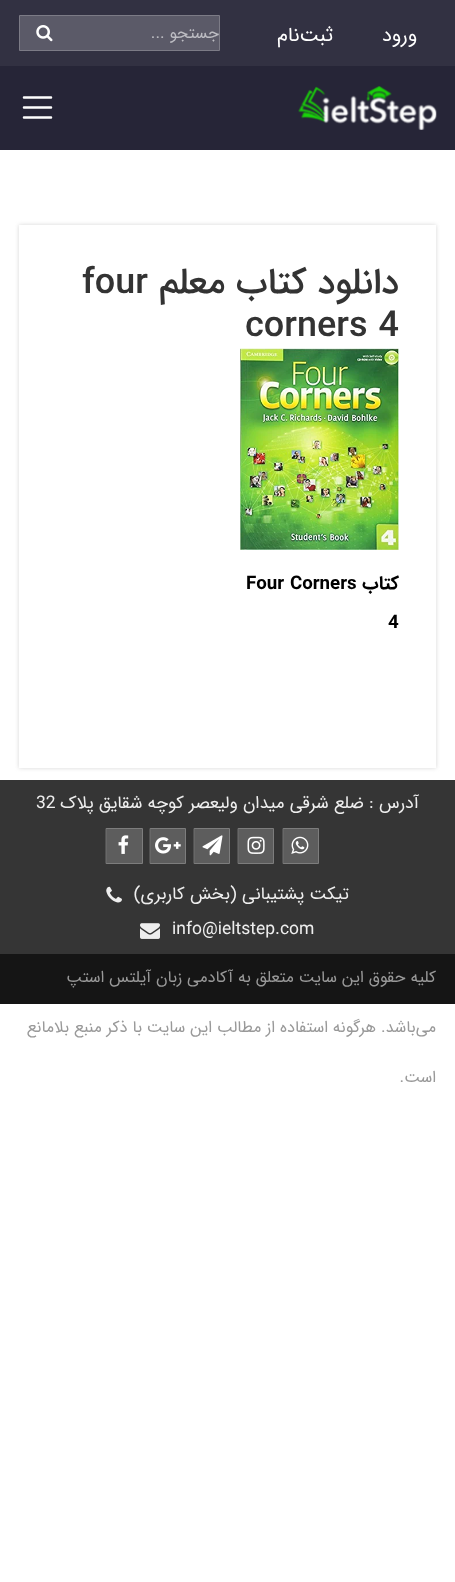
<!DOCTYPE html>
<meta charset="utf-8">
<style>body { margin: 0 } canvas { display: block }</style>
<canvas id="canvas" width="455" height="1582"></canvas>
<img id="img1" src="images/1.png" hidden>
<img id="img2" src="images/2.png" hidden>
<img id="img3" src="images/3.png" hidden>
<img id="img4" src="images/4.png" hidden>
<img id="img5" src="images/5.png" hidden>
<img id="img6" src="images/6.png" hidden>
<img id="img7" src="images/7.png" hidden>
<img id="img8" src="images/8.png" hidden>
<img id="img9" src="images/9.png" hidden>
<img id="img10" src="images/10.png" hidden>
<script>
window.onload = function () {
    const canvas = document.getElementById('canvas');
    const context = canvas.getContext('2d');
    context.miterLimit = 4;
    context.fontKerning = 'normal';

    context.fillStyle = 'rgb(255, 255, 255)';
    context.fillRect(0, 0, 455, 1582);
    context.fillStyle = 'rgb(50, 49, 66)';
    context.fillRect(0, 0, 455, 66);
    context.fillStyle = 'rgb(91, 90, 104)';
    context.beginPath();
    context.rect(19.5, 15.5, 200, 35);
    context.fill();
    context.strokeStyle = 'rgb(124, 123, 134)';
    context.stroke();
    context.drawImage(document.getElementById('img1'), 36, 25, 17, 17);
    context.fillStyle = 'rgb(38, 37, 55)';
    context.fillRect(0, 66, 455, 84);
    context.drawImage(document.getElementById('img2'), 298, 86, 139, 44);
    context.beginPath();
    context.moveTo(24, 97.5);
    context.lineTo(51, 97.5);
    context.moveTo(24, 107.5);
    context.lineTo(51, 107.5);
    context.moveTo(24, 117.5);
    context.lineTo(51, 117.5);
    context.strokeStyle = 'rgb(255, 255, 255)';
    context.lineWidth = 2.5;
    context.lineCap = 'round';
    context.stroke();
    context.fillStyle = 'rgb(214, 214, 214)';
    context.filter = 'blur(2px)';
    context.beginPath();
    context.rect(19, 225, 417, 543);
    context.fill();
    context.filter = 'none';
    context.fillStyle = 'rgb(255, 255, 255)';
    context.fillRect(19, 225, 417, 543);
    context.drawImage(document.getElementById('img3'), 240, 348, 159, 202);
    context.fillStyle = 'rgb(53, 53, 53)';
    context.fillRect(0, 780, 455, 174);
    context.fillStyle = 'rgb(93, 93, 93)';
    context.beginPath();
    context.rect(283.5, 828.5, 35, 35);
    context.fill();
    context.strokeStyle = 'rgb(125, 125, 125)';
    context.lineWidth = 1;
    context.stroke();
    context.drawImage(document.getElementById('img4'), 291, 836, 18, 18);
    context.beginPath();
    context.rect(238.5, 828.5, 35, 35);
    context.fill();
    context.stroke();
    context.drawImage(document.getElementById('img5'), 247, 836, 18, 18);
    context.beginPath();
    context.rect(194.5, 828.5, 35, 35);
    context.fill();
    context.stroke();
    context.drawImage(document.getElementById('img6'), 202, 835, 21, 21);
    context.beginPath();
    context.rect(150.5, 828.5, 35, 35);
    context.fill();
    context.stroke();
    context.drawImage(document.getElementById('img7'), 155, 837, 26, 17);
    context.beginPath();
    context.rect(106.5, 828.5, 36, 35);
    context.fill();
    context.stroke();
    context.drawImage(document.getElementById('img8'), 118, 835, 11, 19);
    context.drawImage(document.getElementById('img9'), 106, 886, 16, 17);
    context.drawImage(document.getElementById('img10'), 140, 923, 20, 16);
    context.fillStyle = 'rgb(21, 21, 21)';
    context.fillRect(0, 954, 455, 50);
    context.direction = 'rtl';
    context.font = '20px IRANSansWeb';
    context.fillStyle = 'rgb(255, 255, 255)';
    context.fillText('ورود', 417, 41);
    context.fillText('ثبت‌نام', 333, 41);
    context.font = '16.25px IRANSansWeb';
    context.fillStyle = 'rgb(189, 189, 195)';
    context.fillText('جستجو ...', 219, 38);
    context.font = '500 36px IRANSansWeb';
    context.fillStyle = 'rgb(51, 51, 51)';
    context.fillText('دانلود کتاب معلم', 399, 293);
    context.direction = 'ltr';
    context.fillText('four', 82, 293);
    context.fillText('corners 4', 245, 336);
    context.direction = 'rtl';
    context.font = 'bold 18.75px IRANSansWeb';
    context.fillStyle = 'rgb(0, 0, 0)';
    context.fillText('کتاب', 399, 589);
    context.direction = 'ltr';
    context.fillText('Four Corners', 246, 589);
    context.fillText('4', 388, 628);
    context.direction = 'rtl';
    context.font = '17.5px IRANSansWeb';
    context.fillStyle = 'rgb(238, 238, 238)';
    context.fillText('آدرس : ضلع شرقی میدان ولیعصر کوچه شقایق پلاک', 419, 808);
    context.direction = 'ltr';
    context.fillText('32', 36, 808);
    context.direction = 'rtl';
    context.fillText('تیکت پشتیبانی (بخش کاربری)', 349, 899);
    context.direction = 'ltr';
    context.fillText('info@ieltstep.com', 172, 934);
    context.direction = 'rtl';
    context.font = '16.25px IRANSansWeb';
    context.fillStyle = 'rgb(153, 153, 153)';
    context.fillText('کلیه حقوق این سایت متعلق به آکادمی زبان آیلتس استپ', 436, 982);
    context.fillText('می‌باشد. هرگونه استفاده از مطالب این سایت با ذکر منبع بلامانع', 436, 1032);
    context.fillText('است.', 436, 1082);
};
</script>
